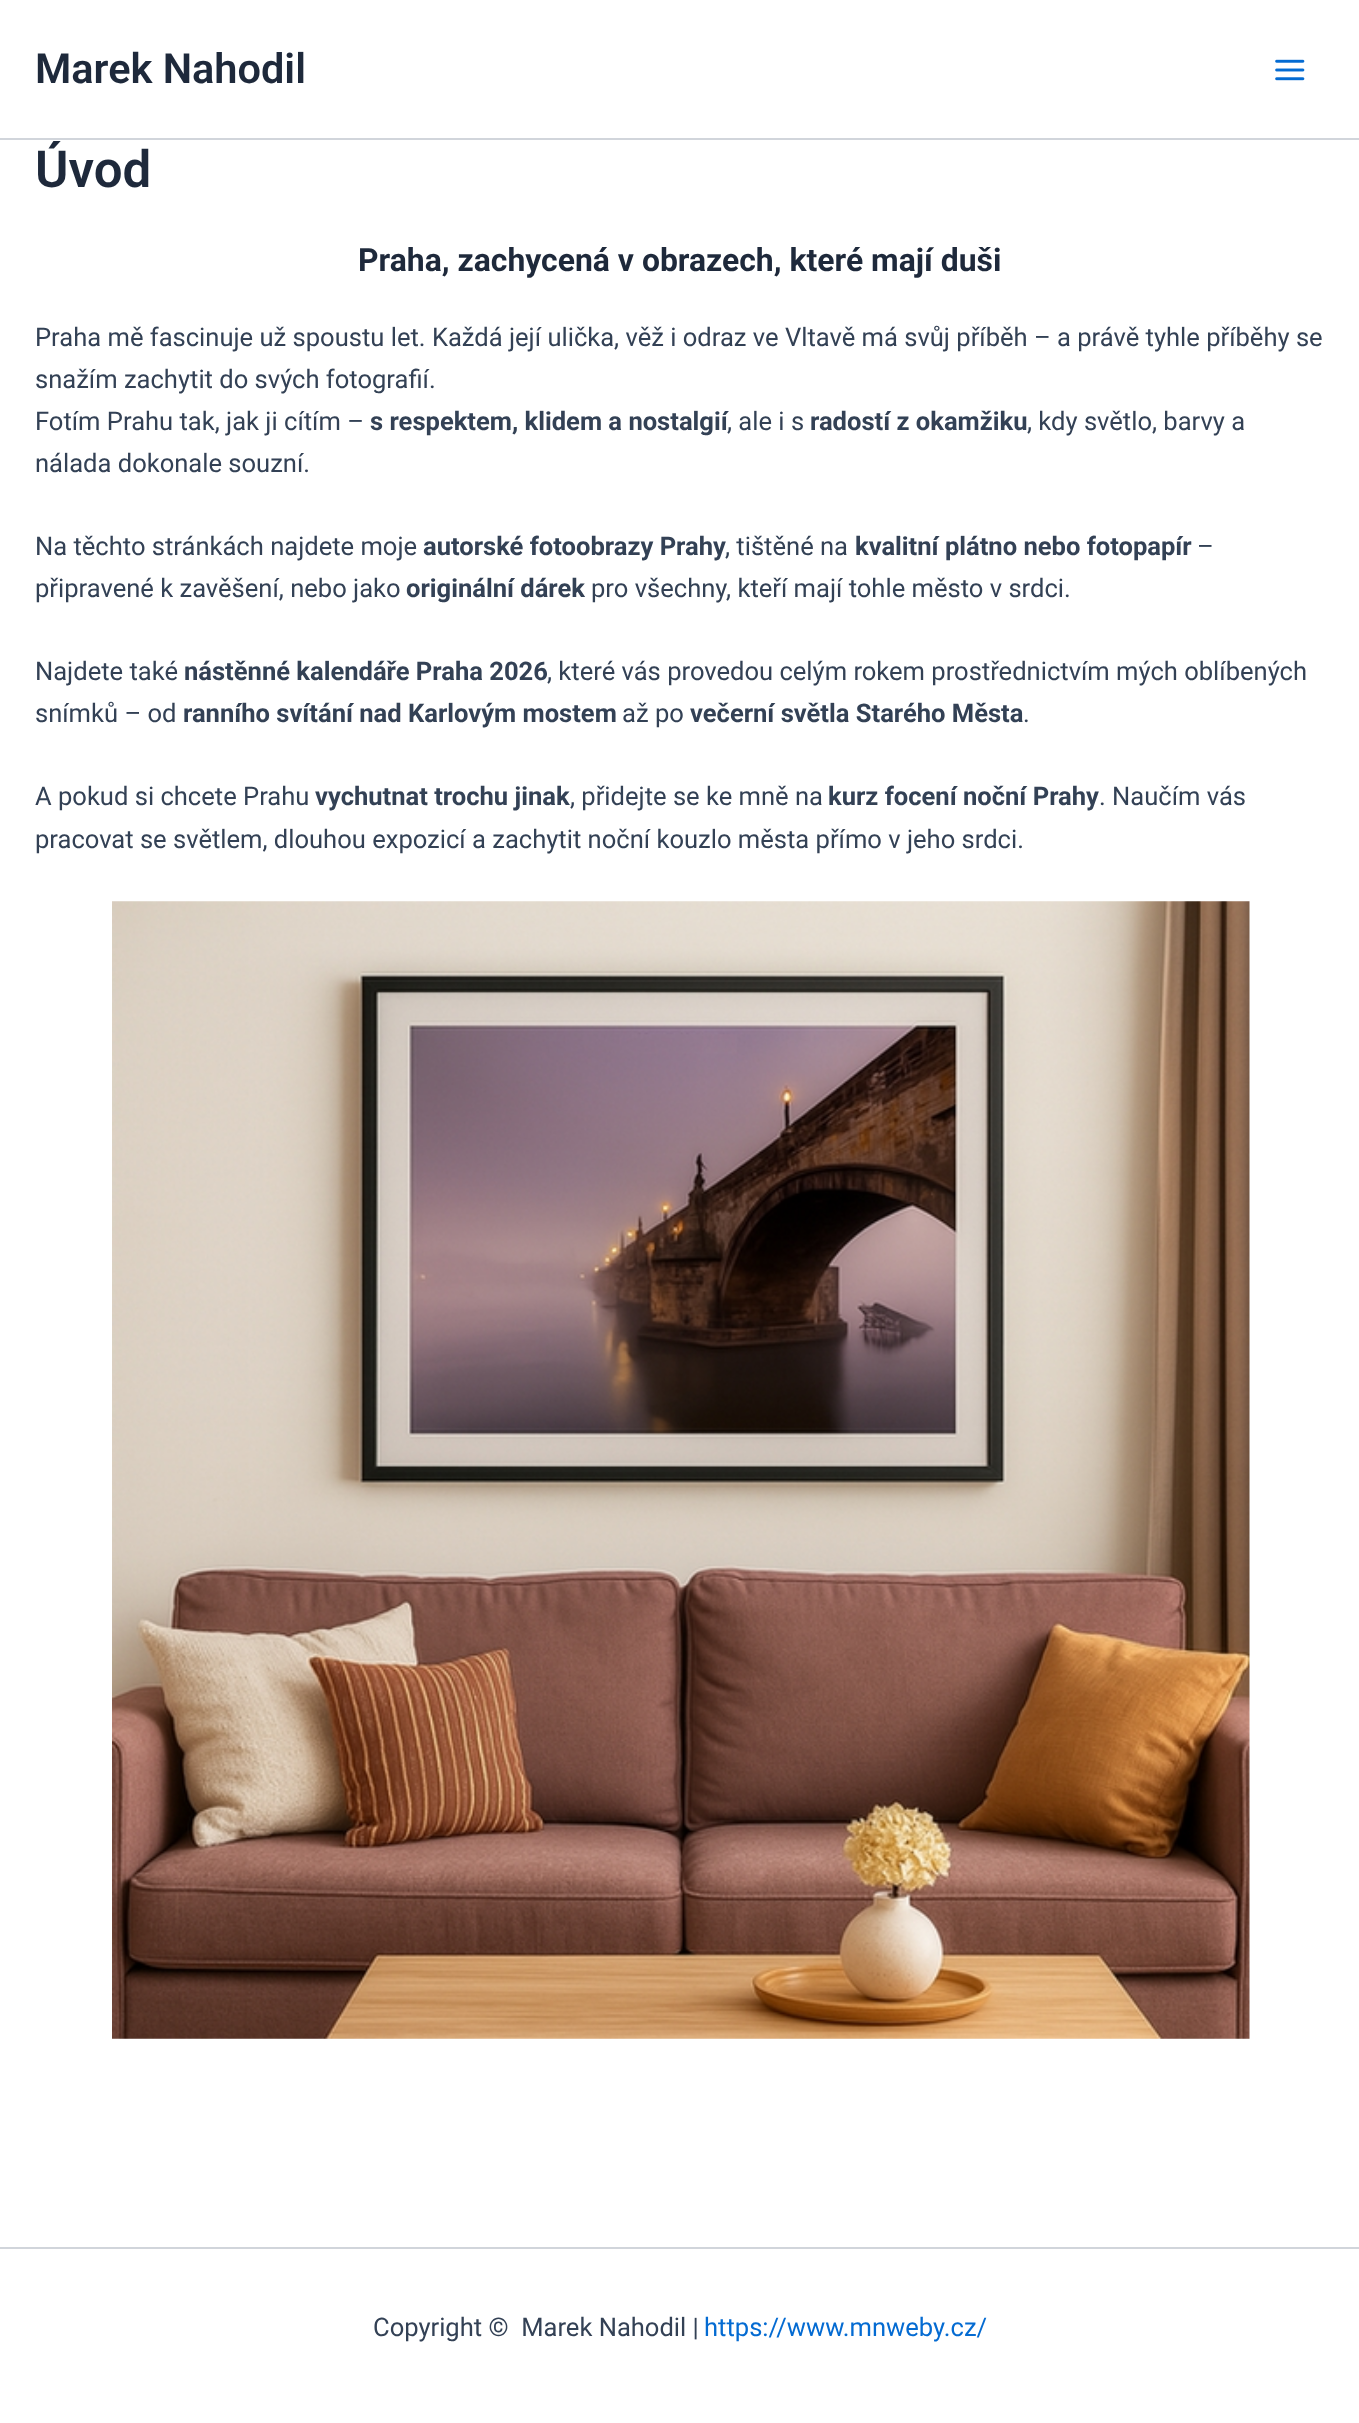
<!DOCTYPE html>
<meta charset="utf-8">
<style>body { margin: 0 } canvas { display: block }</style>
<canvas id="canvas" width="1359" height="2423"></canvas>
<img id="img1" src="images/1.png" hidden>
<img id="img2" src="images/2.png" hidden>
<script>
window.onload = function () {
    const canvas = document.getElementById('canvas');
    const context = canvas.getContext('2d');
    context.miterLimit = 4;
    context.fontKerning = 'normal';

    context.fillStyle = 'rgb(255, 255, 255)';
    context.fillRect(0, 0, 1359, 2423);
    context.fillStyle = 'rgb(209, 213, 219)';
    context.fillRect(0, 138, 1359, 2);
    context.drawImage(document.getElementById('img1'), 1275, 59, 30, 22);
    context.drawImage(document.getElementById('img2'), 112, 901, 1138, 1138);
    context.fillRect(0, 2247, 1359, 2);
    context.font = '600 41.5px Roboto';
    context.fillStyle = 'rgb(30, 41, 59)';
    context.fillText('Marek Nahodil', 35, 83);
    context.font = '600 51px Roboto';
    context.fillText('Úvod', 35, 187);
    context.font = 'bold 31.9px Roboto';
    context.fillText('Praha, zachycená v obrazech, které mají duši', 358, 271);
    context.font = '25.55px Roboto';
    context.fillStyle = 'rgb(51, 65, 85)';
    context.fillText('Praha mě fascinuje už spoustu let. Každá její ulička, věž i odraz ve Vltavě má svůj příběh – a právě tyhle příběhy se', 35, 346);
    context.fillText('snažím zachytit do svých fotografií.', 35, 388);
    context.fillText('Fotím Prahu tak, jak ji cítím –', 35, 430);
    context.font = 'bold 25.55px Roboto';
    context.fillText('s respektem, klidem a nostalgií', 370, 430);
    context.font = '25.55px Roboto';
    context.fillText(', ale i s', 727, 430);
    context.font = 'bold 25.55px Roboto';
    context.fillText('radostí z okamžiku', 810, 430);
    context.font = '25.55px Roboto';
    context.fillText(', kdy světlo, barvy a', 1027, 430);
    context.fillText('nálada dokonale souzní.', 35, 472);
    context.fillText('Na těchto stránkách najdete moje', 35, 555);
    context.font = 'bold 25.55px Roboto';
    context.fillText('autorské fotoobrazy Prahy', 423, 555);
    context.font = '25.55px Roboto';
    context.fillText(', tištěné na', 725, 555);
    context.font = 'bold 25.55px Roboto';
    context.fillText('kvalitní plátno nebo fotopapír', 855, 555);
    context.font = '25.55px Roboto';
    context.fillText('–', 1197, 555);
    context.fillText('připravené k zavěšení, nebo jako', 35, 597);
    context.font = 'bold 25.55px Roboto';
    context.fillText('originální dárek', 406, 597);
    context.font = '25.55px Roboto';
    context.fillText('pro všechny, kteří mají tohle město v srdci.', 591, 597);
    context.fillText('Najdete také', 35, 680);
    context.font = 'bold 25.55px Roboto';
    context.fillText('nástěnné kalendáře Praha 2026', 184, 680);
    context.font = '25.55px Roboto';
    context.fillText(', které vás provedou celým rokem prostřednictvím mých oblíbených', 547, 680);
    context.fillText('snímků – od', 35, 722);
    context.font = 'bold 25.55px Roboto';
    context.fillText('ranního svítání nad Karlovým mostem', 183, 722);
    context.font = '25.55px Roboto';
    context.fillText('až po', 622, 722);
    context.font = 'bold 25.55px Roboto';
    context.fillText('večerní světla Starého Města', 690, 722);
    context.font = '25.55px Roboto';
    context.fillText('.', 1023, 722);
    context.fillText('A pokud si chcete Prahu', 35, 805);
    context.font = 'bold 25.55px Roboto';
    context.fillText('vychutnat trochu jinak', 315, 805);
    context.font = '25.55px Roboto';
    context.fillText(', přidejte se ke mně na', 570, 805);
    context.font = 'bold 25.55px Roboto';
    context.fillText('kurz focení noční Prahy', 828, 805);
    context.font = '25.55px Roboto';
    context.fillText('. Naučím vás', 1099, 805);
    context.fillText('pracovat se světlem, dlouhou expozicí a zachytit noční kouzlo města přímo v jeho srdci.', 35, 848);
    context.fillText('Copyright ©  Marek Nahodil |', 373, 2336);
    context.fillStyle = 'rgb(4, 107, 210)';
    context.fillText('https://www.mnweby.cz/', 704, 2336);
};
</script>
